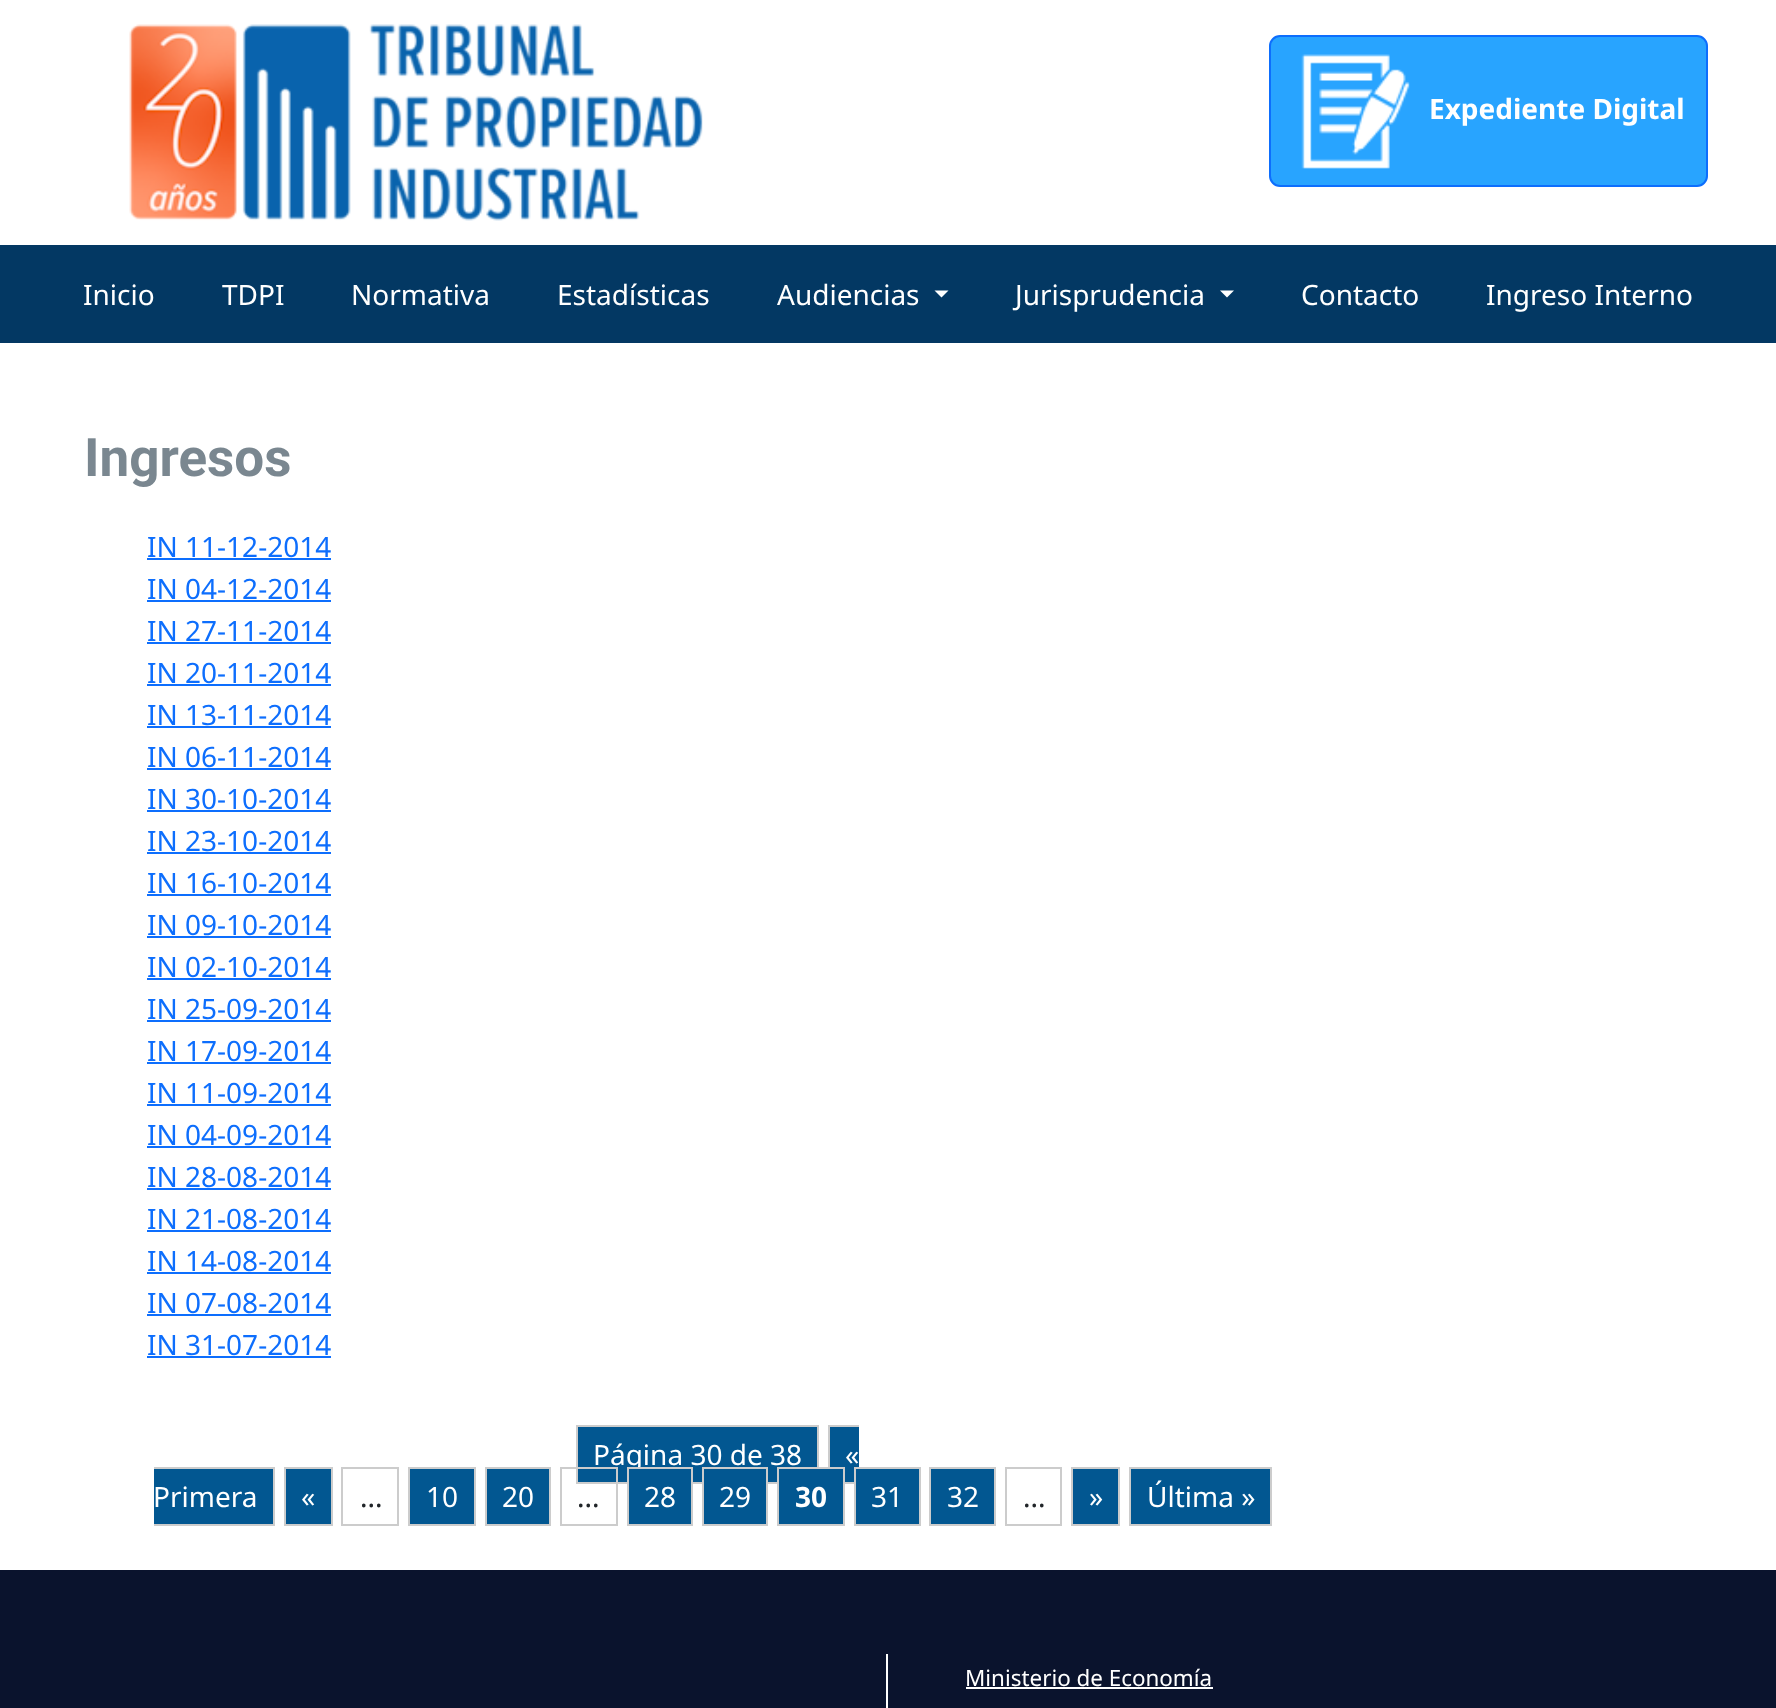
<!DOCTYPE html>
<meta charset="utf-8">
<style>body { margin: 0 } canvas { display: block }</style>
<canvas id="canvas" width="1776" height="1708"></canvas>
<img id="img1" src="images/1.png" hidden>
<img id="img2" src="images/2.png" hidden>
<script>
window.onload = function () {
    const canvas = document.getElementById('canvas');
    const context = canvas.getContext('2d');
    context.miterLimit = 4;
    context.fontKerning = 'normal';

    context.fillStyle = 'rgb(255, 255, 255)';
    context.fillRect(0, 0, 1776, 1708);
    context.drawImage(document.getElementById('img1'), 129, 24, 574, 197);
    context.fillStyle = 'rgb(40, 164, 255)';
    context.beginPath();
    context.roundRect(1270, 36, 437, 150, 10);
    context.fill();
    context.strokeStyle = 'rgb(13, 110, 253)';
    context.lineWidth = 2;
    context.stroke();
    context.drawImage(document.getElementById('img2'), 1301, 54, 109, 115);
    context.fillStyle = 'rgb(3, 56, 99)';
    context.fillRect(0, 245, 1776, 98);
    context.fillStyle = 'rgb(255, 255, 255)';
    context.beginPath();
    context.moveTo(934.5, 290.5);
    context.lineTo(948.5, 290.5);
    context.lineTo(941.5, 297.5);
    context.closePath();
    context.fill();
    context.beginPath();
    context.moveTo(1220, 290.5);
    context.lineTo(1234, 290.5);
    context.lineTo(1227, 297.5);
    context.closePath();
    context.fill();
    context.fillStyle = 'rgb(13, 110, 253)';
    context.fillRect(147, 558, 184, 2);
    context.fillRect(147, 600, 184, 2);
    context.fillRect(147, 642, 184, 2);
    context.fillRect(147, 684, 184, 2);
    context.fillRect(147, 726, 184, 2);
    context.fillRect(147, 768, 184, 2);
    context.fillRect(147, 810, 184, 2);
    context.fillRect(147, 852, 184, 2);
    context.fillRect(147, 894, 184, 2);
    context.fillRect(147, 936, 184, 2);
    context.fillRect(147, 978, 184, 2);
    context.fillRect(147, 1020, 184, 2);
    context.fillRect(147, 1062, 184, 2);
    context.fillRect(147, 1104, 184, 2);
    context.fillRect(147, 1146, 184, 2);
    context.fillRect(147, 1188, 184, 2);
    context.fillRect(147, 1230, 184, 2);
    context.fillRect(147, 1272, 184, 2);
    context.fillRect(147, 1314, 184, 2);
    context.fillRect(147, 1356, 184, 2);
    context.fillStyle = 'rgb(2, 87, 145)';
    context.beginPath();
    context.rect(577, 1426, 241, 57);
    context.fill();
    context.strokeStyle = 'rgb(204, 204, 204)';
    context.stroke();
    context.fillRect(830, 1427, 29, 55);
    context.fillStyle = 'rgb(204, 204, 204)';
    context.fillRect(828, 1425, 31, 2);
    context.fillRect(845, 1482, 14, 2);
    context.fillRect(828, 1425, 2, 42);
    context.fillStyle = 'rgb(2, 87, 145)';
    context.fillRect(154, 1469, 119, 55);
    context.fillStyle = 'rgb(204, 204, 204)';
    context.fillRect(154, 1467, 121, 2);
    context.fillRect(273, 1467, 2, 59);
    context.fillRect(154, 1524, 121, 2);
    context.fillStyle = 'rgb(2, 87, 145)';
    context.beginPath();
    context.rect(285, 1468, 47, 57);
    context.fill();
    context.stroke();
    context.strokeRect(342, 1468, 56, 57);
    context.beginPath();
    context.rect(409, 1468, 66, 57);
    context.fill();
    context.stroke();
    context.beginPath();
    context.rect(486, 1468, 64, 57);
    context.fill();
    context.stroke();
    context.fillRect(704, 1482, 62, 42);
    context.beginPath();
    context.rect(855, 1468, 65, 57);
    context.fill();
    context.stroke();
    context.beginPath();
    context.rect(930, 1468, 65, 57);
    context.fill();
    context.stroke();
    context.strokeRect(1006, 1468, 55, 57);
    context.beginPath();
    context.rect(1072, 1468, 47, 57);
    context.fill();
    context.stroke();
    context.beginPath();
    context.rect(1130, 1468, 141, 57);
    context.fill();
    context.stroke();
    context.fillStyle = 'rgb(10, 19, 45)';
    context.fillRect(0, 1570, 1776, 138);
    context.fillStyle = 'rgb(255, 255, 255)';
    context.fillRect(886, 1654, 2, 54);
    context.fillRect(966, 1687, 247, 2);
    context.font = 'bold 28px Noto Sans';
    context.fillText('Expediente Digital', 1429, 119);
    context.font = '28px Noto Sans';
    context.fillText('Inicio', 83, 305);
    context.fillText('TDPI', 222, 305);
    context.fillText('Normativa', 351, 305);
    context.fillText('Estadísticas', 557, 305);
    context.fillText('Audiencias', 777, 305);
    context.fillText('Jurisprudencia', 1015, 305);
    context.fillText('Contacto', 1301, 305);
    context.fillText('Ingreso Interno', 1486, 305);
    context.font = 'bold 53px Roboto';
    context.fillStyle = 'rgb(122, 135, 144)';
    context.fillText('Ingresos', 84, 476);
    context.font = '28px Noto Sans';
    context.fillStyle = 'rgb(13, 110, 253)';
    context.fillText('IN 11-12-2014', 147, 557);
    context.fillText('IN 04-12-2014', 147, 599);
    context.fillText('IN 27-11-2014', 147, 641);
    context.fillText('IN 20-11-2014', 147, 683);
    context.fillText('IN 13-11-2014', 147, 725);
    context.fillText('IN 06-11-2014', 147, 767);
    context.fillText('IN 30-10-2014', 147, 809);
    context.fillText('IN 23-10-2014', 147, 851);
    context.fillText('IN 16-10-2014', 147, 893);
    context.fillText('IN 09-10-2014', 147, 935);
    context.fillText('IN 02-10-2014', 147, 977);
    context.fillText('IN 25-09-2014', 147, 1019);
    context.fillText('IN 17-09-2014', 147, 1061);
    context.fillText('IN 11-09-2014', 147, 1103);
    context.fillText('IN 04-09-2014', 147, 1145);
    context.fillText('IN 28-08-2014', 147, 1187);
    context.fillText('IN 21-08-2014', 147, 1229);
    context.fillText('IN 14-08-2014', 147, 1271);
    context.fillText('IN 07-08-2014', 147, 1313);
    context.fillText('IN 31-07-2014', 147, 1355);
    context.fillStyle = 'rgb(255, 255, 255)';
    context.fillText('Página 30 de 38', 593, 1465);
    context.fillText('«', 845, 1465);
    context.fillText('Primera', 153, 1507);
    context.fillText('«', 301, 1507);
    context.fillStyle = 'rgb(33, 37, 41)';
    context.fillText('...', 360, 1507);
    context.fillStyle = 'rgb(255, 255, 255)';
    context.fillText('10', 426, 1507);
    context.fillText('20', 502, 1507);
    context.strokeRect(561, 1468, 56, 57);
    context.fillStyle = 'rgb(33, 37, 41)';
    context.fillText('...', 577, 1507);
    context.fillStyle = 'rgb(2, 87, 145)';
    context.beginPath();
    context.rect(628, 1468, 64, 57);
    context.fill();
    context.stroke();
    context.fillStyle = 'rgb(255, 255, 255)';
    context.fillText('28', 644, 1507);
    context.strokeRect(703, 1468, 64, 57);
    context.fillText('29', 719, 1507);
    context.fillStyle = 'rgb(2, 87, 145)';
    context.beginPath();
    context.rect(778, 1468, 66, 57);
    context.fill();
    context.stroke();
    context.font = 'bold 28px Noto Sans';
    context.fillStyle = 'rgb(255, 255, 255)';
    context.fillText('30', 795, 1507);
    context.font = '28px Noto Sans';
    context.fillText('31', 871, 1507);
    context.fillText('32', 947, 1507);
    context.fillStyle = 'rgb(33, 37, 41)';
    context.fillText('...', 1023, 1507);
    context.fillStyle = 'rgb(255, 255, 255)';
    context.fillText('»', 1089, 1507);
    context.fillText('Última »', 1147, 1507);
    context.font = '22.4px Noto Sans';
    context.fillText('Ministerio de Economía', 965, 1686);
};
</script>
